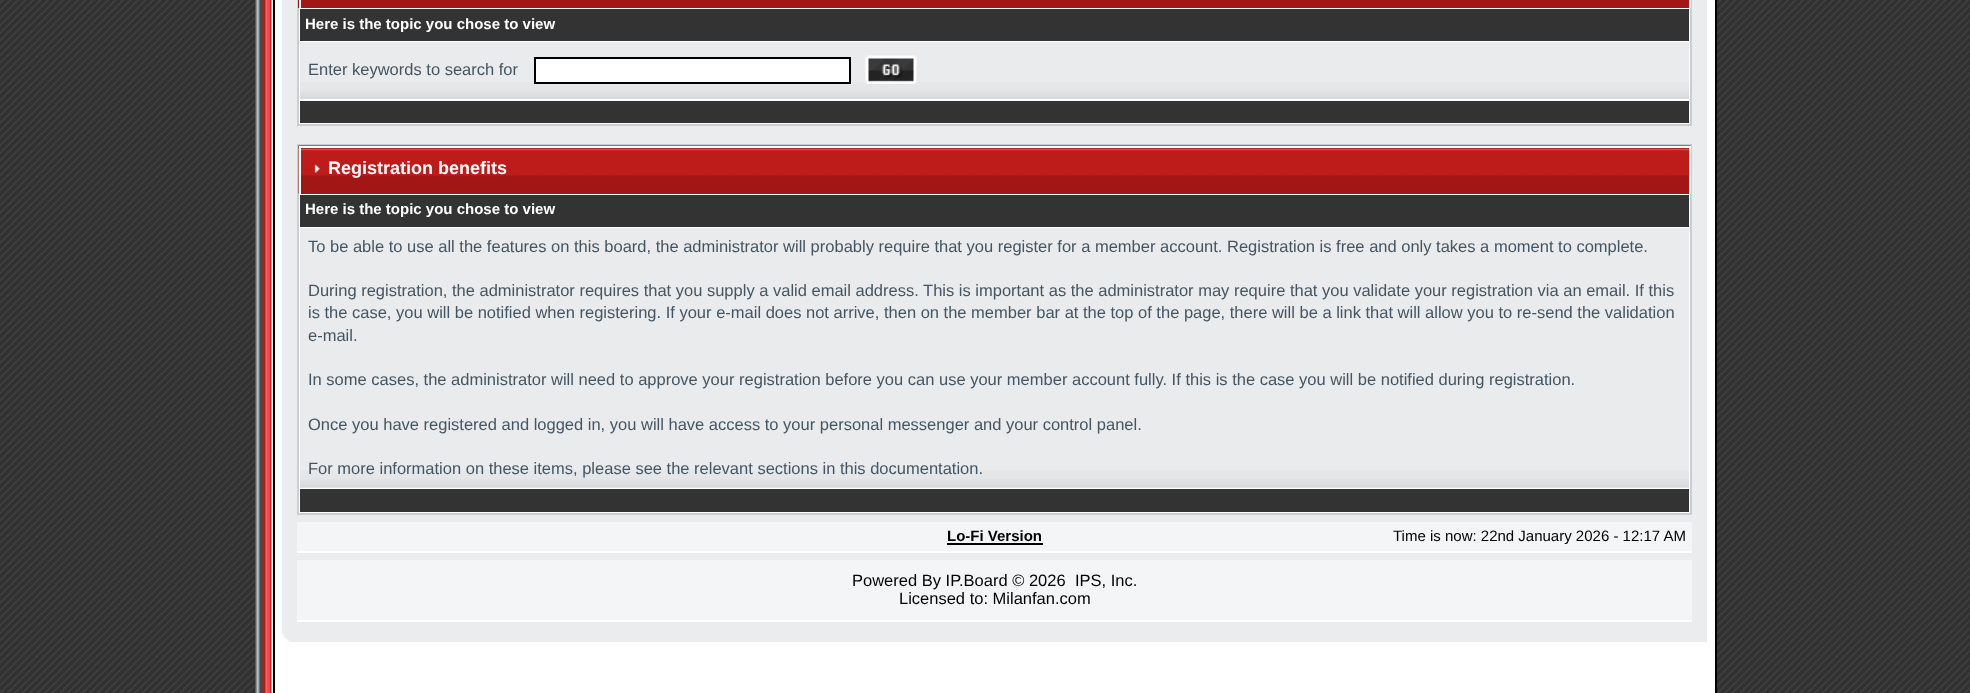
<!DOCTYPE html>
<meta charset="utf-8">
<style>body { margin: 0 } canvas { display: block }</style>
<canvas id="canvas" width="1970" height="693"></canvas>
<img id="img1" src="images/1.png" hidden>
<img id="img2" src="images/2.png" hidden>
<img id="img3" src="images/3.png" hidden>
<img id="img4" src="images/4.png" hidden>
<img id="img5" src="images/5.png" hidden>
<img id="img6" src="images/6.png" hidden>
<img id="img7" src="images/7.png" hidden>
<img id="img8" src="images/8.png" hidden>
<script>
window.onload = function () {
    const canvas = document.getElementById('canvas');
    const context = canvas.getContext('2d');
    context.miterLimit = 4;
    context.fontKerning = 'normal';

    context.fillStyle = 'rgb(255, 255, 255)';
    context.fillRect(0, 0, 1970, 693);
    context.drawImage(document.getElementById('img1'), 0, 0, 1970, 693);
    context.drawImage(document.getElementById('img2'), 255, 0, 18, 693);
    context.fillRect(275, 0, 1440, 693);
    context.fillStyle = 'rgb(0, 0, 0)';
    context.fillRect(1715, 0, 2, 693);
    context.fillRect(273, 0, 2, 693);
    context.fillStyle = 'rgb(234, 236, 238)';
    context.fillRect(282, 0, 1425, 642);
    context.fillStyle = 'rgb(255, 255, 255)';
    context.fillRect(299, 8, 1391, 116);
    context.strokeStyle = 'rgb(203, 206, 209)';
    context.lineWidth = 2;
    context.strokeRect(298, -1, 1393, 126);
    context.fillStyle = 'rgb(163, 22, 22)';
    context.fillRect(298, 0, 1393, 8);
    context.fillStyle = 'rgb(255, 255, 255)';
    context.fillRect(1689, 0, 2, 8);
    context.fillRect(299, 0, 2, 8);
    context.fillStyle = 'rgb(51, 51, 51)';
    context.fillRect(300, 9, 1389, 32);
    context.fillStyle = 'rgb(234, 235, 236)';
    context.fillRect(300, 42, 1389, 40);
    context.drawImage(document.getElementById('img3'), 300, 82, 1389, 17);
    context.fillStyle = 'rgb(255, 255, 255)';
    context.beginPath();
    context.rect(535, 58, 315, 25);
    context.fill();
    context.strokeStyle = 'rgb(0, 0, 0)';
    context.stroke();
    context.drawImage(document.getElementById('img4'), 865, 55, 52, 29);
    context.fillStyle = 'rgb(51, 51, 51)';
    context.fillRect(300, 101, 1389, 22);
    context.fillStyle = 'rgb(255, 255, 255)';
    context.fillRect(299, 194, 1391, 319);
    context.strokeStyle = 'rgb(203, 206, 209)';
    context.strokeRect(298, 145, 1393, 369);
    context.fillStyle = 'rgb(134, 34, 13)';
    context.fillRect(301, 193, 1388, 1);
    context.drawImage(document.getElementById('img5'), 298, 145, 1393, 49);
    context.fillStyle = 'rgb(255, 255, 255)';
    context.fillRect(299, 146, 1392, 2);
    context.fillRect(1689, 146, 2, 48);
    context.fillRect(299, 146, 2, 48);
    context.drawImage(document.getElementById('img6'), 314, 164, 6, 9);
    context.fillStyle = 'rgb(51, 51, 51)';
    context.fillRect(300, 195, 1389, 32);
    context.fillStyle = 'rgb(234, 235, 236)';
    context.fillRect(300, 228, 1389, 260);
    context.drawImage(document.getElementById('img7'), 300, 470, 1389, 18);
    context.fillStyle = 'rgb(51, 51, 51)';
    context.fillRect(300, 489, 1389, 23);
    context.fillStyle = 'rgb(244, 245, 246)';
    context.fillRect(297, 522, 1395, 29);
    context.fillStyle = 'rgb(255, 255, 255)';
    context.fillRect(297, 551, 1395, 2);
    context.fillStyle = 'rgb(0, 0, 0)';
    context.fillRect(947, 543, 96, 2);
    context.fillStyle = 'rgb(244, 245, 246)';
    context.fillRect(297, 560, 1395, 60);
    context.fillStyle = 'rgb(255, 255, 255)';
    context.fillRect(297, 620, 1395, 2);
    context.drawImage(document.getElementById('img8'), 282, 633, 9, 9);
    context.font = 'bold 15px Liberation Sans';
    context.fillText('Here is the topic you chose to view', 305, 29);
    context.font = '16.5px Liberation Sans';
    context.fillStyle = 'rgb(68, 85, 99)';
    context.fillText('Enter keywords to search for', 308, 75);
    context.font = 'bold 18px Liberation Sans';
    context.fillStyle = 'rgb(255, 255, 255)';
    context.fillText('Registration benefits', 328, 174);
    context.font = 'bold 15px Liberation Sans';
    context.fillText('Here is the topic you chose to view', 305, 214);
    context.font = '16.5px Liberation Sans';
    context.fillStyle = 'rgb(68, 85, 99)';
    context.fillText('To be able to use all the features on this board, the administrator will probably require that you register for a member account. Registration is free and only takes a moment to complete.', 308, 252);
    context.fillText('During registration, the administrator requires that you supply a valid email address. This is important as the administrator may require that you validate your registration via an email. If this', 308, 296);
    context.fillText('is the case, you will be notified when registering. If your e-mail does not arrive, then on the member bar at the top of the page, there will be a link that will allow you to re-send the validation', 308, 318);
    context.fillText('e-mail.', 308, 341);
    context.fillText('In some cases, the administrator will need to approve your registration before you can use your member account fully. If this is the case you will be notified during registration.', 308, 385);
    context.fillText('Once you have registered and logged in, you will have access to your personal messenger and your control panel.', 308, 430);
    context.fillText('For more information on these items, please see the relevant sections in this documentation.', 308, 474);
    context.font = 'bold 15px Liberation Sans';
    context.fillStyle = 'rgb(0, 0, 0)';
    context.fillText('Lo-Fi Version', 947, 541);
    context.font = '15px Liberation Sans';
    context.fillText('Time is now: 22nd January 2026 - 12:17 AM', 1393, 541);
    context.font = '16.5px Liberation Sans';
    context.fillText('Powered By IP.Board © 2026', 852, 586);
    context.fillText('IPS, Inc.', 1075, 586);
    context.fillText('Licensed to: Milanfan.com', 899, 604);
};
</script>
